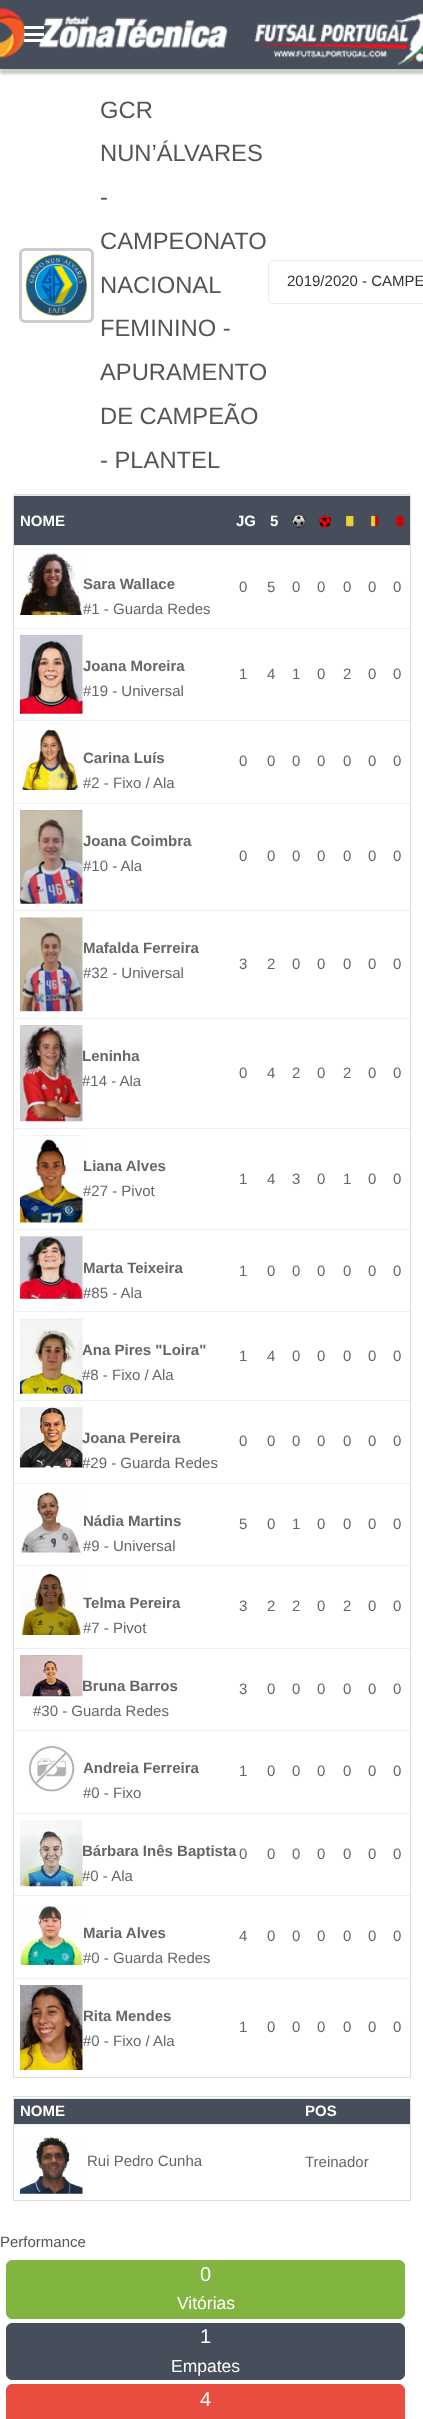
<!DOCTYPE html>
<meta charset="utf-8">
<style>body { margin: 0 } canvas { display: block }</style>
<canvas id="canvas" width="423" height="2419"></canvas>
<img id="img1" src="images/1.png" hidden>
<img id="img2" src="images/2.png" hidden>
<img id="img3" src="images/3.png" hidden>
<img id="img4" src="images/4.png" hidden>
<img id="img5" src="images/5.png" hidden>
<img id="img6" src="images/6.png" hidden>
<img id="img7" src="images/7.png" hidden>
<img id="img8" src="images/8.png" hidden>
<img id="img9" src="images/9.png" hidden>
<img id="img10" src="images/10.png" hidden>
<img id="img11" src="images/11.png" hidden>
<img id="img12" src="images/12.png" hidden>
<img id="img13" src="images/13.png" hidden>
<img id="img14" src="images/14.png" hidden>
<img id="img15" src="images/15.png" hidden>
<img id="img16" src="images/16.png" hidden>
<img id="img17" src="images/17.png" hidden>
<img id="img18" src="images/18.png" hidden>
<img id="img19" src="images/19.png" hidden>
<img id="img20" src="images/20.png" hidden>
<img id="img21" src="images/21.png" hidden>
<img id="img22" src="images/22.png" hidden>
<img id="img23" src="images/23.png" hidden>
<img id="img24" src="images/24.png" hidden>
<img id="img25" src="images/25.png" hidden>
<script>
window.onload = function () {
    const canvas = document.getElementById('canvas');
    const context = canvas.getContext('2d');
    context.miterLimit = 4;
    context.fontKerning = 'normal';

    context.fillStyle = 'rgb(255, 255, 255)';
    context.fillRect(0, 0, 423, 2419);
    context.fillStyle = 'rgba(0, 0, 0, 0.2)';
    context.filter = 'blur(1px)';
    context.beginPath();
    context.rect(0, 5, 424, 69);
    context.fill();
    context.filter = 'none';
    context.fillStyle = 'rgb(70, 78, 91)';
    context.fillRect(0, 0, 423, 69);
    context.drawImage(document.getElementById('img1'), 0, 7, 423, 59);
    context.fillStyle = 'rgb(255, 255, 255)';
    context.fillRect(24, 26, 20, 3);
    context.fillRect(24, 33, 20, 3);
    context.fillRect(24, 39, 20, 3);
    context.beginPath();
    context.roundRect(20.5, 249.5, 72, 72, 4.5);
    context.strokeStyle = 'rgb(204, 204, 204)';
    context.lineWidth = 3;
    context.stroke();
    context.drawImage(document.getElementById('img2'), 25, 254, 63, 62);
    context.beginPath();
    context.roundRect(268.5, 260.5, 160, 43, 4.5);
    context.strokeStyle = 'rgb(231, 235, 241)';
    context.lineWidth = 1;
    context.stroke();
    context.strokeStyle = 'rgb(221, 221, 221)';
    context.strokeRect(13.5, 494.5, 397, 1583);
    context.fillStyle = 'rgb(237, 240, 242)';
    context.fillRect(14, 495, 396, 1);
    context.fillStyle = 'rgb(70, 78, 91)';
    context.fillRect(14, 496, 396, 49);
    context.drawImage(document.getElementById('img3'), 395, 515, 9, 12);
    context.drawImage(document.getElementById('img4'), 292, 515, 13, 13);
    context.drawImage(document.getElementById('img5'), 318, 515, 14, 13);
    context.drawImage(document.getElementById('img6'), 345, 515, 9, 12);
    context.drawImage(document.getElementById('img7'), 370, 515, 9, 12);
    context.drawImage(document.getElementById('img8'), 20, 553, 62, 62);
    context.fillStyle = 'rgb(237, 240, 242)';
    context.fillRect(14, 545, 396, 1);
    context.drawImage(document.getElementById('img9'), 20, 635, 63, 79);
    context.fillRect(14, 628, 396, 1);
    context.drawImage(document.getElementById('img10'), 22, 729, 56, 61);
    context.fillRect(14, 720, 396, 1);
    context.drawImage(document.getElementById('img11'), 20, 810, 63, 94);
    context.fillRect(14, 803, 396, 1);
    context.drawImage(document.getElementById('img12'), 20, 917, 63, 95);
    context.fillRect(14, 910, 396, 1);
    context.drawImage(document.getElementById('img13'), 20, 1025, 63, 97);
    context.fillRect(14, 1018, 396, 1);
    context.drawImage(document.getElementById('img14'), 20, 1135, 63, 88);
    context.fillRect(14, 1128, 396, 1);
    context.drawImage(document.getElementById('img15'), 20, 1236, 63, 63);
    context.fillRect(14, 1229, 396, 1);
    context.drawImage(document.getElementById('img16'), 20, 1318, 63, 76);
    context.fillRect(14, 1311, 396, 1);
    context.drawImage(document.getElementById('img17'), 20, 1407, 63, 61);
    context.fillRect(14, 1400, 396, 1);
    context.drawImage(document.getElementById('img18'), 21, 1492, 60, 61);
    context.fillRect(14, 1483, 396, 1);
    context.drawImage(document.getElementById('img19'), 21, 1573, 60, 62);
    context.fillRect(14, 1565, 396, 1);
    context.drawImage(document.getElementById('img20'), 20, 1655, 63, 42);
    context.fillRect(14, 1648, 396, 1);
    context.drawImage(document.getElementById('img21'), 26, 1743, 49, 49);
    context.fillRect(14, 1730, 396, 1);
    context.drawImage(document.getElementById('img22'), 20, 1820, 63, 67);
    context.fillRect(14, 1813, 396, 1);
    context.drawImage(document.getElementById('img23'), 20, 1905, 63, 60);
    context.fillRect(14, 1895, 396, 1);
    context.drawImage(document.getElementById('img24'), 20, 1985, 63, 85);
    context.fillRect(14, 1978, 396, 1);
    context.strokeRect(13.5, 2096.5, 397, 104);
    context.fillStyle = 'rgb(70, 78, 91)';
    context.fillRect(14, 2099, 396, 25);
    context.fillStyle = 'rgb(237, 240, 242)';
    context.fillRect(14, 2098, 396, 1);
    context.drawImage(document.getElementById('img25'), 20, 2136, 63, 58);
    context.fillRect(14, 2124, 396, 1);
    context.fillStyle = 'rgb(130, 180, 64)';
    context.beginPath();
    context.roundRect(6.5, 2260.5, 398, 58, 5.5);
    context.fill();
    context.strokeStyle = 'rgb(130, 180, 64)';
    context.stroke();
    context.fillStyle = 'rgb(70, 78, 91)';
    context.beginPath();
    context.roundRect(6.5, 2323.5, 398, 56, 5.5);
    context.fill();
    context.strokeStyle = 'rgb(70, 78, 91)';
    context.stroke();
    context.fillStyle = 'rgb(231, 78, 64)';
    context.beginPath();
    context.roundRect(6.5, 2384.5, 398, 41, 5.5);
    context.fill();
    context.strokeStyle = 'rgb(231, 78, 64)';
    context.stroke();
    context.font = '23.75px Liberation Sans';
    context.fillStyle = 'rgb(85, 85, 85)';
    context.fillText('GCR', 100, 118);
    context.fillText('NUN’ÁLVARES', 100, 161);
    context.fillText('-', 100, 205);
    context.fillText('CAMPEONATO', 100, 249);
    context.fillText('NACIONAL', 100, 293);
    context.fillText('FEMININO -', 100, 336);
    context.fillText('APURAMENTO', 100, 380);
    context.fillText('DE CAMPEÃO', 100, 424);
    context.fillText('- PLANTEL', 100, 468);
    context.font = '15px Liberation Sans';
    context.fillStyle = 'rgb(51, 51, 51)';
    context.fillText('2019/2020 - CAMPE', 287, 286);
    context.font = 'bold 15px Liberation Sans';
    context.fillStyle = 'rgb(255, 255, 255)';
    context.fillText('NOME', 20, 526);
    context.fillText('JG', 236, 526);
    context.fillText('5', 270, 526);
    context.fillStyle = 'rgb(102, 102, 102)';
    context.fillText('Sara Wallace', 83, 589);
    context.font = '15px Liberation Sans';
    context.fillText('#1 - Guarda Redes', 83, 614);
    context.fillText('0', 239, 592);
    context.fillText('5', 267, 592);
    context.fillText('0', 292, 592);
    context.fillText('0', 317, 592);
    context.fillText('0', 343, 592);
    context.fillText('0', 368, 592);
    context.fillText('0', 393, 592);
    context.font = 'bold 15px Liberation Sans';
    context.fillText('Joana Moreira', 83, 671);
    context.font = '15px Liberation Sans';
    context.fillText('#19 - Universal', 83, 696);
    context.fillText('1', 239, 679);
    context.fillText('4', 267, 679);
    context.fillText('1', 292, 679);
    context.fillText('0', 317, 679);
    context.fillText('2', 343, 679);
    context.fillText('0', 368, 679);
    context.fillText('0', 393, 679);
    context.font = 'bold 15px Liberation Sans';
    context.fillText('Carina Luís', 83, 763);
    context.font = '15px Liberation Sans';
    context.fillText('#2 - Fixo / Ala', 83, 788);
    context.fillText('0', 239, 766);
    context.fillText('0', 267, 766);
    context.fillText('0', 292, 766);
    context.fillText('0', 317, 766);
    context.fillText('0', 343, 766);
    context.fillText('0', 368, 766);
    context.fillText('0', 393, 766);
    context.font = 'bold 15px Liberation Sans';
    context.fillText('Joana Coimbra', 83, 846);
    context.font = '15px Liberation Sans';
    context.fillText('#10 - Ala', 83, 871);
    context.fillText('0', 239, 861);
    context.fillText('0', 267, 861);
    context.fillText('0', 292, 861);
    context.fillText('0', 317, 861);
    context.fillText('0', 343, 861);
    context.fillText('0', 368, 861);
    context.fillText('0', 393, 861);
    context.font = 'bold 15px Liberation Sans';
    context.fillText('Mafalda Ferreira', 83, 953);
    context.font = '15px Liberation Sans';
    context.fillText('#32 - Universal', 83, 978);
    context.fillText('3', 239, 969);
    context.fillText('2', 267, 969);
    context.fillText('0', 292, 969);
    context.fillText('0', 317, 969);
    context.fillText('0', 343, 969);
    context.fillText('0', 368, 969);
    context.fillText('0', 393, 969);
    context.font = 'bold 15px Liberation Sans';
    context.fillText('Leninha', 82, 1061);
    context.font = '15px Liberation Sans';
    context.fillText('#14 - Ala', 82, 1086);
    context.fillText('0', 239, 1078);
    context.fillText('4', 267, 1078);
    context.fillText('2', 292, 1078);
    context.fillText('0', 317, 1078);
    context.fillText('2', 343, 1078);
    context.fillText('0', 368, 1078);
    context.fillText('0', 393, 1078);
    context.font = 'bold 15px Liberation Sans';
    context.fillText('Liana Alves', 83, 1171);
    context.font = '15px Liberation Sans';
    context.fillText('#27 - Pivot', 83, 1196);
    context.fillText('1', 239, 1184);
    context.fillText('4', 267, 1184);
    context.fillText('3', 292, 1184);
    context.fillText('0', 317, 1184);
    context.fillText('1', 343, 1184);
    context.fillText('0', 368, 1184);
    context.fillText('0', 393, 1184);
    context.font = 'bold 15px Liberation Sans';
    context.fillText('Marta Teixeira', 83, 1273);
    context.font = '15px Liberation Sans';
    context.fillText('#85 - Ala', 83, 1298);
    context.fillText('1', 239, 1276);
    context.fillText('0', 267, 1276);
    context.fillText('0', 292, 1276);
    context.fillText('0', 317, 1276);
    context.fillText('0', 343, 1276);
    context.fillText('0', 368, 1276);
    context.fillText('0', 393, 1276);
    context.font = 'bold 15px Liberation Sans';
    context.fillText('Ana Pires "Loira"', 82, 1355);
    context.font = '15px Liberation Sans';
    context.fillText('#8 - Fixo / Ala', 82, 1380);
    context.fillText('1', 239, 1361);
    context.fillText('4', 267, 1361);
    context.fillText('0', 292, 1361);
    context.fillText('0', 317, 1361);
    context.fillText('0', 343, 1361);
    context.fillText('0', 368, 1361);
    context.fillText('0', 393, 1361);
    context.font = 'bold 15px Liberation Sans';
    context.fillText('Joana Pereira', 82, 1443);
    context.font = '15px Liberation Sans';
    context.fillText('#29 - Guarda Redes', 82, 1468);
    context.fillText('0', 239, 1446);
    context.fillText('0', 267, 1446);
    context.fillText('0', 292, 1446);
    context.fillText('0', 317, 1446);
    context.fillText('0', 343, 1446);
    context.fillText('0', 368, 1446);
    context.fillText('0', 393, 1446);
    context.font = 'bold 15px Liberation Sans';
    context.fillText('Nádia Martins', 83, 1526);
    context.font = '15px Liberation Sans';
    context.fillText('#9 - Universal', 83, 1551);
    context.fillText('5', 239, 1529);
    context.fillText('0', 267, 1529);
    context.fillText('1', 292, 1529);
    context.fillText('0', 317, 1529);
    context.fillText('0', 343, 1529);
    context.fillText('0', 368, 1529);
    context.fillText('0', 393, 1529);
    context.font = 'bold 15px Liberation Sans';
    context.fillText('Telma Pereira', 83, 1608);
    context.font = '15px Liberation Sans';
    context.fillText('#7 - Pivot', 83, 1633);
    context.fillText('3', 239, 1611);
    context.fillText('2', 267, 1611);
    context.fillText('2', 292, 1611);
    context.fillText('0', 317, 1611);
    context.fillText('2', 343, 1611);
    context.fillText('0', 368, 1611);
    context.fillText('0', 393, 1611);
    context.font = 'bold 15px Liberation Sans';
    context.fillText('Bruna Barros', 82, 1691);
    context.font = '15px Liberation Sans';
    context.fillText('#30 - Guarda Redes', 33, 1716);
    context.fillText('3', 239, 1694);
    context.fillText('0', 267, 1694);
    context.fillText('0', 292, 1694);
    context.fillText('0', 317, 1694);
    context.fillText('0', 343, 1694);
    context.fillText('0', 368, 1694);
    context.fillText('0', 393, 1694);
    context.font = 'bold 15px Liberation Sans';
    context.fillText('Andreia Ferreira', 83, 1773);
    context.font = '15px Liberation Sans';
    context.fillText('#0 - Fixo', 83, 1798);
    context.fillText('1', 239, 1776);
    context.fillText('0', 267, 1776);
    context.fillText('0', 292, 1776);
    context.fillText('0', 317, 1776);
    context.fillText('0', 343, 1776);
    context.fillText('0', 368, 1776);
    context.fillText('0', 393, 1776);
    context.font = 'bold 15px Liberation Sans';
    context.fillText('Bárbara Inês Baptista', 82, 1856);
    context.font = '15px Liberation Sans';
    context.fillText('#0 - Ala', 82, 1881);
    context.fillText('0', 239, 1859);
    context.fillText('0', 267, 1859);
    context.fillText('0', 292, 1859);
    context.fillText('0', 317, 1859);
    context.fillText('0', 343, 1859);
    context.fillText('0', 368, 1859);
    context.fillText('0', 393, 1859);
    context.font = 'bold 15px Liberation Sans';
    context.fillText('Maria Alves', 83, 1938);
    context.font = '15px Liberation Sans';
    context.fillText('#0 - Guarda Redes', 83, 1963);
    context.fillText('4', 239, 1941);
    context.fillText('0', 267, 1941);
    context.fillText('0', 292, 1941);
    context.fillText('0', 317, 1941);
    context.fillText('0', 343, 1941);
    context.fillText('0', 368, 1941);
    context.fillText('0', 393, 1941);
    context.font = 'bold 15px Liberation Sans';
    context.fillText('Rita Mendes', 83, 2021);
    context.font = '15px Liberation Sans';
    context.fillText('#0 - Fixo / Ala', 83, 2046);
    context.fillText('1', 239, 2032);
    context.fillText('0', 267, 2032);
    context.fillText('0', 292, 2032);
    context.fillText('0', 317, 2032);
    context.fillText('0', 343, 2032);
    context.fillText('0', 368, 2032);
    context.fillText('0', 393, 2032);
    context.font = 'bold 15px Liberation Sans';
    context.fillStyle = 'rgb(255, 255, 255)';
    context.fillText('NOME', 20, 2116);
    context.fillText('POS', 305, 2116);
    context.font = '15px Liberation Sans';
    context.fillStyle = 'rgb(102, 102, 102)';
    context.fillText('Rui Pedro Cunha', 87, 2166);
    context.fillText('Treinador', 305, 2167);
    context.fillStyle = 'rgb(85, 85, 85)';
    context.fillText('Performance', 0, 2247);
    context.font = '20px Liberation Sans';
    context.fillStyle = 'rgb(255, 255, 255)';
    context.fillText('0', 200, 2281);
    context.font = '17.5px Liberation Sans';
    context.fillText('Vitórias', 177, 2309);
    context.font = '20px Liberation Sans';
    context.fillText('1', 200, 2343);
    context.font = '17.5px Liberation Sans';
    context.fillText('Empates', 171, 2372);
    context.font = '20px Liberation Sans';
    context.fillText('4', 200, 2406);
};
</script>
